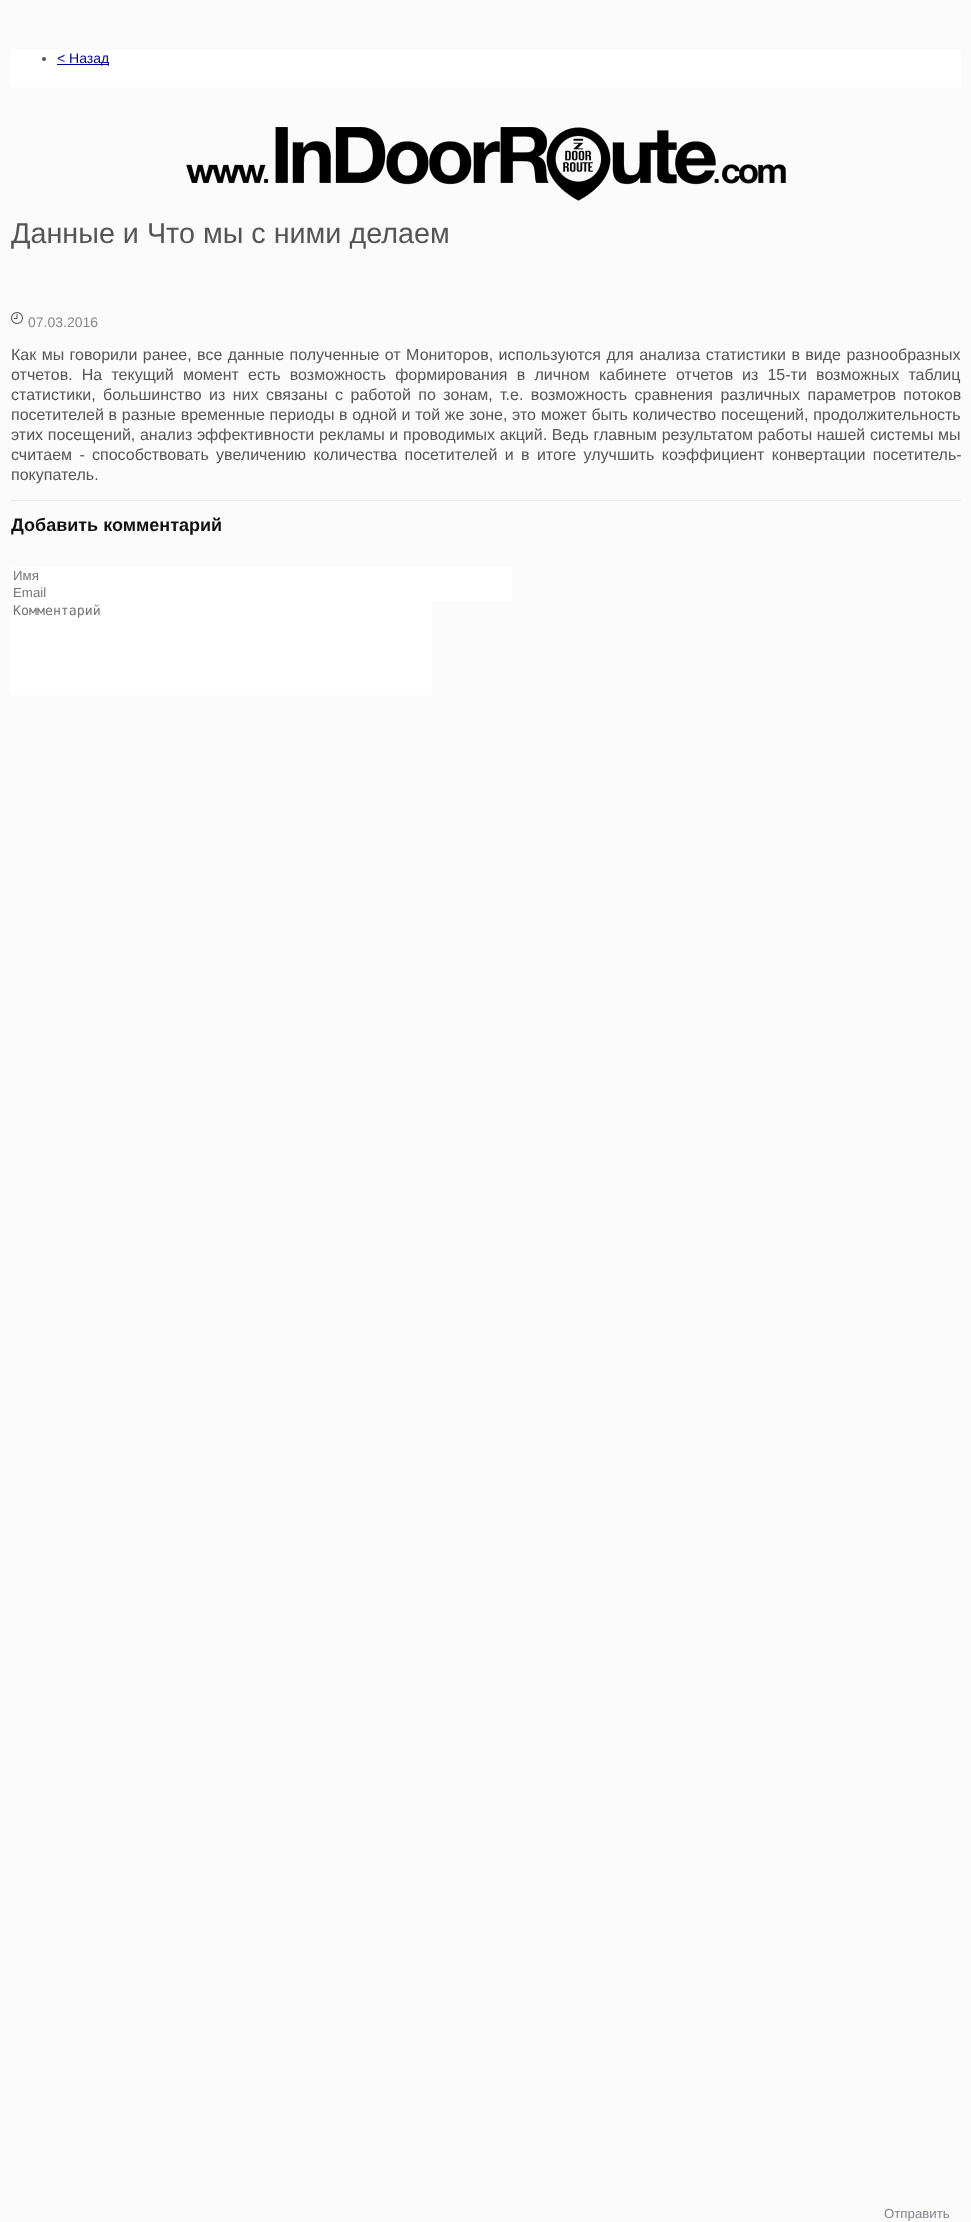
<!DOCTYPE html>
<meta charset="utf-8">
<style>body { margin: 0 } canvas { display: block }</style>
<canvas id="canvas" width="971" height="2222"></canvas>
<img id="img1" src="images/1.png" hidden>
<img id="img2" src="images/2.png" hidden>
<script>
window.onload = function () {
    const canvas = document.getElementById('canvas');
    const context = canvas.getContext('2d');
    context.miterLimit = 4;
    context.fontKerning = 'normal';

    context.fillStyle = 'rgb(251, 251, 251)';
    context.fillRect(0, 0, 971, 2222);
    context.fillStyle = 'rgb(255, 255, 255)';
    context.fillRect(11, 50, 950, 37);
    context.fillStyle = 'rgb(85, 85, 85)';
    context.beginPath();
    context.arc(44, 59, 2, 0, 2 * Math.PI);
    context.fill();
    context.fillStyle = 'rgb(0, 0, 153)';
    context.fillRect(57, 64, 52, 1);
    context.drawImage(document.getElementById('img1'), 186, 127, 600, 74);
    context.drawImage(document.getElementById('img2'), 11, 312, 12, 12);
    context.fillStyle = 'rgb(231, 231, 231)';
    context.fillRect(11, 500, 950, 1);
    context.fillStyle = 'rgb(255, 255, 255)';
    context.fillRect(11, 567, 501, 34);
    context.fillRect(11, 601, 421, 94);
    context.font = '14px Liberation Sans';
    context.fillStyle = 'rgb(0, 0, 153)';
    context.fillText('< Назад', 57, 63);
    context.font = '28.75px Liberation Sans';
    context.fillStyle = 'rgb(85, 85, 85)';
    context.fillText('Данные и Что мы с ними делаем', 11, 243);
    context.font = '14px Liberation Sans';
    context.fillStyle = 'rgb(136, 136, 136)';
    context.fillText('07.03.2016', 28, 327);
    context.wordSpacing = '1px';
    context.font = '16px Liberation Sans';
    context.fillStyle = 'rgb(85, 85, 85)';
    context.fillText('Как мы говорили ранее, все данные полученные от Мониторов, используются для анализа статистики в виде разнообразных', 11, 360);
    context.wordSpacing = '4.75px';
    context.fillText('отчетов. На текущий момент есть возможность формирования в личном кабинете', 11, 380);
    context.wordSpacing = '0px';
    context.fillText('отчетов', 676, 380);
    context.wordSpacing = '4.75px';
    context.fillText('из 15-ти возможных таблиц', 742, 380);
    context.wordSpacing = '3px';
    context.fillText('статистики, большинство из них связаны с работой по зонам, т.е. возможность сравнения различных параметров потоков', 11, 400);
    context.wordSpacing = '0.25px';
    context.fillText('посетителей в разные временные периоды в одной и той же зоне, это может быть количество посещений, продолжительность', 11, 420);
    context.fillText('этих посещений, анализ эффективности рекламы и проводимых акций. Ведь главным результатом работы нашей системы мы', 11, 440);
    context.wordSpacing = '2.9px';
    context.fillText('считаем - способствовать увеличению количества посетителей и в итоге улучшить коэффициент конвертации посетитель-', 11, 460);
    context.wordSpacing = '0px';
    context.fillText('покупатель.', 11, 480);
    context.font = 'bold 18px Liberation Sans';
    context.fillStyle = 'rgb(17, 17, 17)';
    context.fillText('Добавить комментарий', 11, 531);
    context.font = '13.25px Liberation Sans';
    context.fillStyle = 'rgb(117, 117, 117)';
    context.fillText('Имя', 13, 580);
    context.fillText('Email', 13, 597);
    context.font = '13.25px DejaVu Sans Mono';
    context.fillText('Комментарий', 13, 615);
    context.font = '13.25px Liberation Sans';
    context.fillStyle = 'rgb(130, 133, 140)';
    context.fillText('Отправить', 884, 2218);
};
</script>
